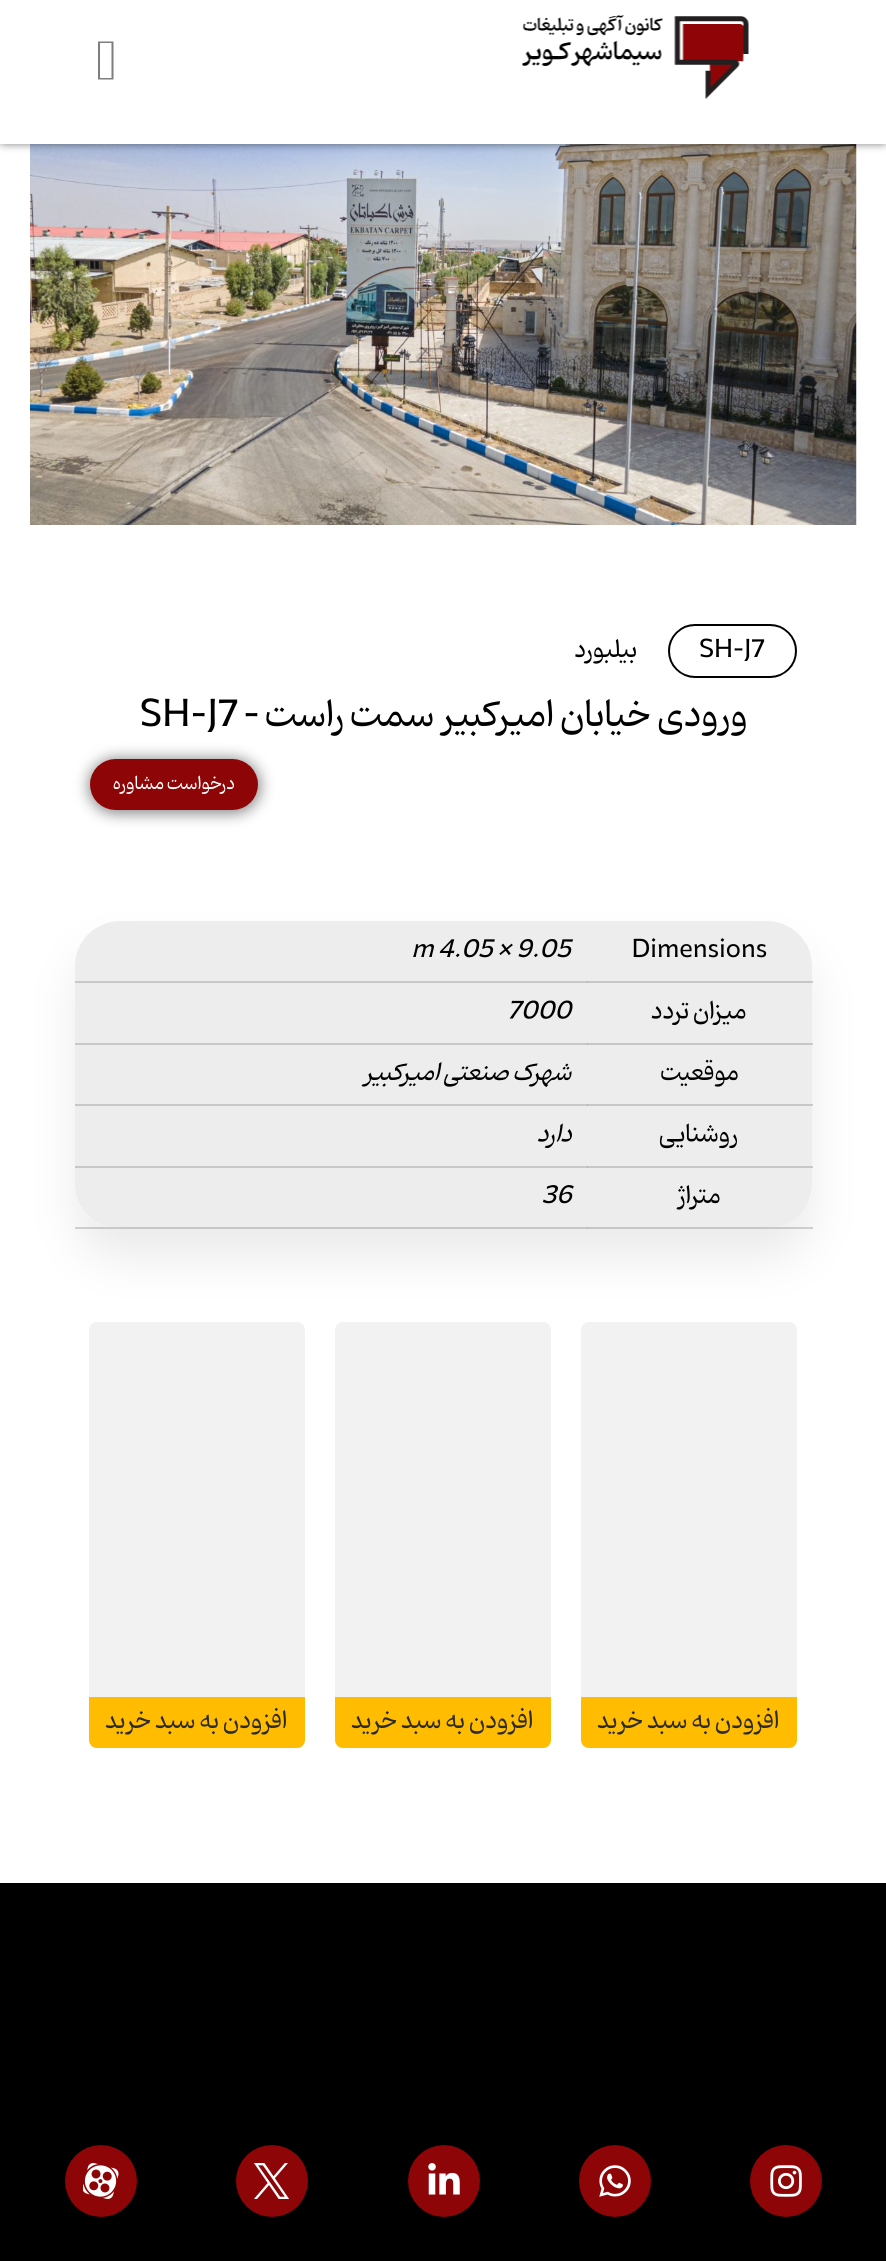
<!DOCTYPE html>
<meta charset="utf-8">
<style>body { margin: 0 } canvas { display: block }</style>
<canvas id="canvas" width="886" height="2261"></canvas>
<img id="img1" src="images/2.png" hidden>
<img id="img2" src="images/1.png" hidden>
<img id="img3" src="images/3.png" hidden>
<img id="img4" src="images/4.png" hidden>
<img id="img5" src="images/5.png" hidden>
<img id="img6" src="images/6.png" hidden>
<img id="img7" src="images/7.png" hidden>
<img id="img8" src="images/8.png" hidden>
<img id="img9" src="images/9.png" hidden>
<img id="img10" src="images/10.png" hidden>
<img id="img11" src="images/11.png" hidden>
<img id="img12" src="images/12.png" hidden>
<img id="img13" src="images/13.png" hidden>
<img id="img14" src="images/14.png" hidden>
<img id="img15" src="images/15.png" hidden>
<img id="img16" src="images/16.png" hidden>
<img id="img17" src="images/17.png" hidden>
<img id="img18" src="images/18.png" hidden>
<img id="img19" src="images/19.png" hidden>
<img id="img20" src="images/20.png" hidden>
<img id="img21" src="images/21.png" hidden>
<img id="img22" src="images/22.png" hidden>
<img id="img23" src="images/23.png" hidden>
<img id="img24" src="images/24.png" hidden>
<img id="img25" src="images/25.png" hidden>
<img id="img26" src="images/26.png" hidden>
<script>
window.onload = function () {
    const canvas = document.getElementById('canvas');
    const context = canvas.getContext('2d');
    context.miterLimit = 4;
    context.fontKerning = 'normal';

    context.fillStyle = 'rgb(255, 255, 255)';
    context.fillRect(0, 0, 886, 2261);
    context.drawImage(document.getElementById('img1'), 30, 144, 827, 381);
    context.fillStyle = 'rgba(0, 0, 0, 0.5)';
    context.filter = 'blur(4.5px)';
    context.beginPath();
    context.rect(0, 0, 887, 144);
    context.fill();
    context.filter = 'none';
    context.fillStyle = 'rgb(255, 255, 255)';
    context.fillRect(0, 0, 886, 144);
    context.fillStyle = 'rgb(126, 126, 126)';
    context.beginPath();
    context.moveTo(98, 79.5);
    context.lineTo(98, 41.5);
    context.lineTo(113.5, 41.5);
    context.lineTo(113.5, 79.5);
    context.closePath();
    context.moveTo(100, 78);
    context.lineTo(111.5, 78);
    context.lineTo(111.5, 43);
    context.lineTo(100, 43);
    context.closePath();
    context.fill();
    context.drawImage(document.getElementById('img2'), 522, 15, 227, 84);
    context.drawImage(document.getElementById('img3'), 575, 639, 61, 25);
    context.beginPath();
    context.roundRect(669, 625, 127, 52, 26);
    context.strokeStyle = 'rgb(0, 0, 0)';
    context.lineWidth = 2;
    context.stroke();
    context.drawImage(document.getElementById('img4'), 700, 638, 65, 23);
    context.drawImage(document.getElementById('img5'), 141, 698, 97, 34);
    context.drawImage(document.getElementById('img6'), 245, 699, 501, 38);
    context.fillStyle = 'rgba(0, 0, 0, 0.5)';
    context.filter = 'blur(7.5px)';
    context.beginPath();
    context.roundRect(89, 759, 171, 54, 27);
    context.fill();
    context.filter = 'none';
    context.fillStyle = 'rgb(142, 5, 7)';
    context.beginPath();
    context.roundRect(90, 759, 168, 51, 25.5);
    context.fill();
    context.drawImage(document.getElementById('img7'), 113, 775, 121, 19);
    context.save();
    context.beginPath();
    context.moveTo(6, 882);
    context.lineTo(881, 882);
    context.lineTo(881, 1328);
    context.lineTo(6, 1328);
    context.closePath();
    context.moveTo(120, 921);
    context.lineTo(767, 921);
    context.bezierCurveTo(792, 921, 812, 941, 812, 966);
    context.lineTo(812, 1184);
    context.bezierCurveTo(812, 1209, 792, 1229, 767, 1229);
    context.lineTo(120, 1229);
    context.bezierCurveTo(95, 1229, 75, 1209, 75, 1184);
    context.lineTo(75, 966);
    context.bezierCurveTo(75, 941, 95, 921, 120, 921);
    context.closePath();
    context.clip('evenodd');
    context.fillStyle = 'rgba(0, 0, 0, 0.08)';
    context.filter = 'blur(22.5px)';
    context.beginPath();
    context.roundRect(75, 951, 737, 308, 45);
    context.fill();
    context.filter = 'none';
    context.restore();
    context.fillStyle = 'rgba(233, 233, 233, 0.84)';
    context.beginPath();
    context.roundRect(75, 921, 737, 308, 45);
    context.fill();
    context.fillStyle = 'rgba(167, 167, 167, 0.2)';
    context.fillRect(588, 981, 225, 2);
    context.fillStyle = 'rgb(200, 200, 200)';
    context.fillRect(75, 981, 513, 2);
    context.drawImage(document.getElementById('img8'), 413, 944, 21, 13);
    context.drawImage(document.getElementById('img9'), 439, 939, 56, 19);
    context.drawImage(document.getElementById('img10'), 499, 943, 14, 12);
    context.drawImage(document.getElementById('img11'), 518, 939, 55, 19);
    context.fillStyle = 'rgba(0, 0, 0, 0.1)';
    context.fillRect(587, 981, 226, 2);
    context.drawImage(document.getElementById('img12'), 633, 938, 134, 20);
    context.fillStyle = 'rgba(167, 167, 167, 0.2)';
    context.fillRect(588, 1043, 225, 2);
    context.fillStyle = 'rgb(200, 200, 200)';
    context.fillRect(75, 1043, 513, 2);
    context.drawImage(document.getElementById('img13'), 509, 1000, 64, 19);
    context.fillStyle = 'rgba(0, 0, 0, 0.1)';
    context.fillRect(587, 1043, 226, 2);
    context.drawImage(document.getElementById('img14'), 651, 1000, 95, 26);
    context.fillStyle = 'rgba(167, 167, 167, 0.2)';
    context.fillRect(588, 1104, 225, 2);
    context.fillStyle = 'rgb(200, 200, 200)';
    context.fillRect(75, 1104, 513, 2);
    context.drawImage(document.getElementById('img15'), 361, 1062, 211, 25);
    context.fillStyle = 'rgba(0, 0, 0, 0.1)';
    context.fillRect(587, 1104, 226, 2);
    context.drawImage(document.getElementById('img16'), 661, 1059, 77, 28);
    context.fillStyle = 'rgba(167, 167, 167, 0.2)';
    context.fillRect(588, 1166, 225, 2);
    context.fillStyle = 'rgb(200, 200, 200)';
    context.fillRect(75, 1166, 513, 2);
    context.drawImage(document.getElementById('img17'), 538, 1123, 34, 26);
    context.fillStyle = 'rgba(0, 0, 0, 0.1)';
    context.fillRect(587, 1166, 226, 2);
    context.drawImage(document.getElementById('img18'), 659, 1123, 78, 26);
    context.fillStyle = 'rgba(167, 167, 167, 0.2)';
    context.fillRect(75, 1227, 738, 2);
    context.fillStyle = 'rgba(0, 0, 0, 0.1)';
    context.fillRect(75, 1227, 513, 2);
    context.drawImage(document.getElementById('img19'), 542, 1185, 32, 19);
    context.fillRect(587, 1227, 226, 2);
    context.drawImage(document.getElementById('img20'), 676, 1185, 44, 25);
    context.fillStyle = 'rgb(242, 242, 242)';
    context.beginPath();
    context.roundRect(89, 1322, 216, 426, 8);
    context.fill();
    context.fillStyle = 'rgb(255, 188, 0)';
    context.beginPath();
    context.roundRect(89, 1697, 216, 51, [0, 0, 8, 8]);
    context.fill();
    context.drawImage(document.getElementById('img21'), 105, 1707, 181, 28);
    context.fillStyle = 'rgb(242, 242, 242)';
    context.beginPath();
    context.roundRect(335, 1322, 216, 426, 8);
    context.fill();
    context.fillStyle = 'rgb(255, 188, 0)';
    context.beginPath();
    context.roundRect(335, 1697, 216, 51, [0, 0, 8, 8]);
    context.fill();
    context.drawImage(document.getElementById('img21'), 351, 1707, 181, 28);
    context.fillStyle = 'rgb(242, 242, 242)';
    context.beginPath();
    context.roundRect(581, 1322, 216, 426, 8);
    context.fill();
    context.fillStyle = 'rgb(255, 188, 0)';
    context.beginPath();
    context.roundRect(581, 1697, 216, 51, [0, 0, 8, 8]);
    context.fill();
    context.drawImage(document.getElementById('img21'), 597, 1707, 181, 28);
    context.fillStyle = 'rgb(0, 0, 0)';
    context.fillRect(0, 1883, 886, 378);
    context.fillStyle = 'rgb(142, 5, 7)';
    context.beginPath();
    context.arc(101, 2181, 36, 0, 2 * Math.PI);
    context.fill();
    context.drawImage(document.getElementById('img22'), 83, 2163, 36, 36);
    context.beginPath();
    context.arc(272, 2181, 36, 0, 2 * Math.PI);
    context.fill();
    context.drawImage(document.getElementById('img23'), 254, 2163, 35, 36);
    context.beginPath();
    context.arc(444, 2181, 36, 0, 2 * Math.PI);
    context.fill();
    context.drawImage(document.getElementById('img24'), 428, 2163, 32, 32);
    context.beginPath();
    context.arc(615, 2181, 36, 0, 2 * Math.PI);
    context.fill();
    context.drawImage(document.getElementById('img25'), 599, 2165, 32, 32);
    context.beginPath();
    context.arc(786, 2181, 36, 0, 2 * Math.PI);
    context.fill();
    context.drawImage(document.getElementById('img26'), 770, 2165, 32, 32);
};
</script>
